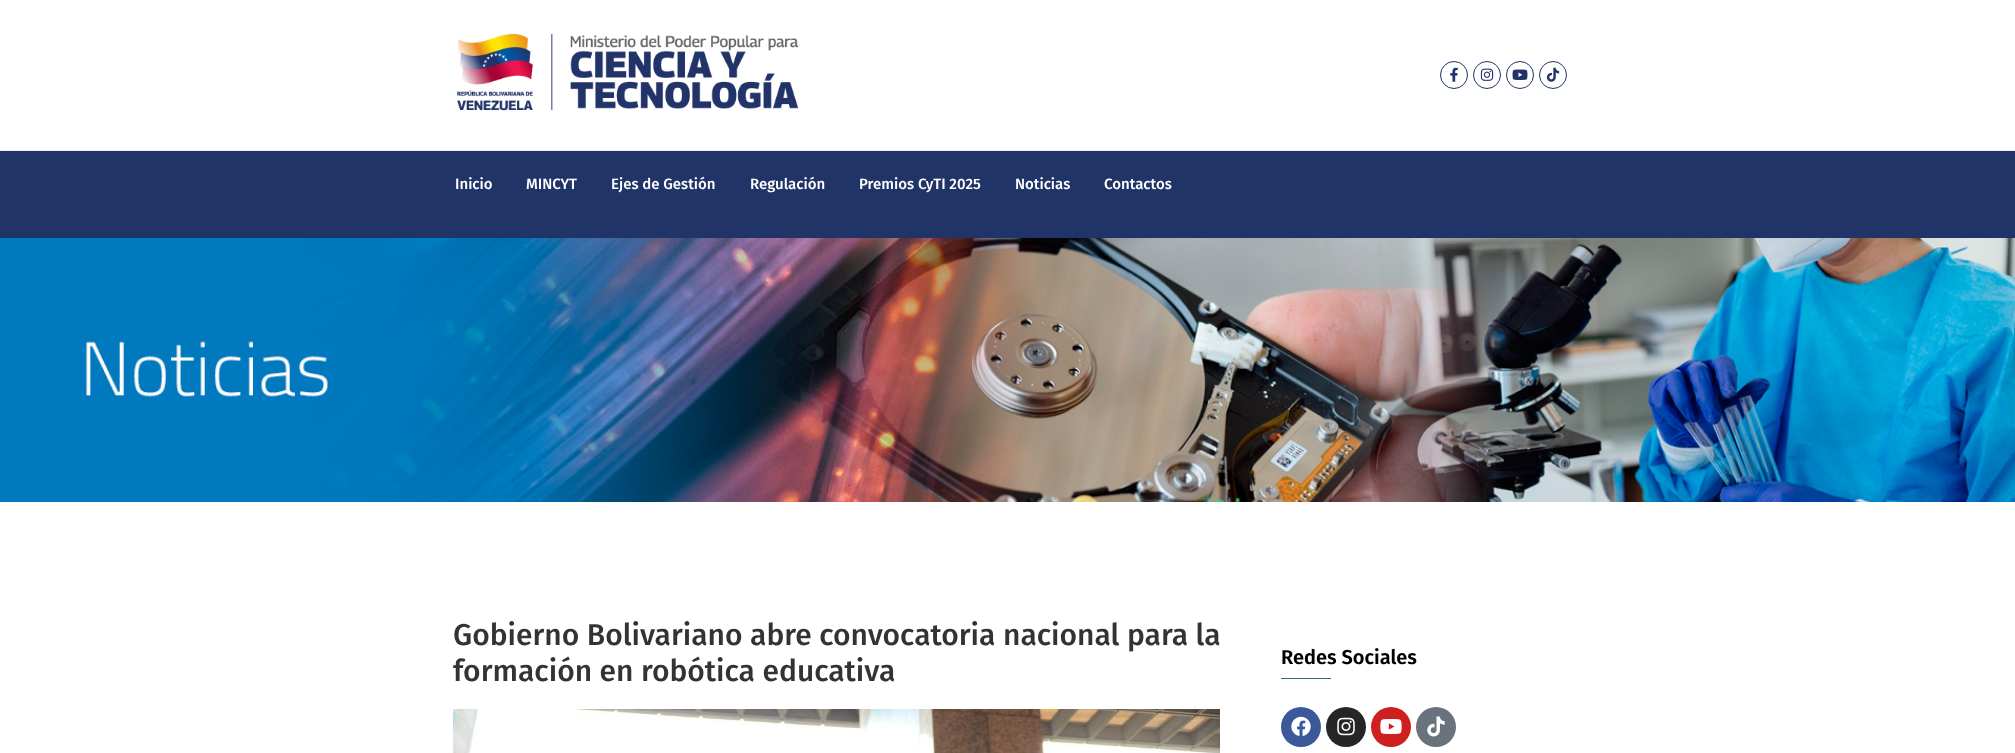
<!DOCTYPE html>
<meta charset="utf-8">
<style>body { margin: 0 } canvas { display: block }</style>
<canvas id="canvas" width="2015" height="753"></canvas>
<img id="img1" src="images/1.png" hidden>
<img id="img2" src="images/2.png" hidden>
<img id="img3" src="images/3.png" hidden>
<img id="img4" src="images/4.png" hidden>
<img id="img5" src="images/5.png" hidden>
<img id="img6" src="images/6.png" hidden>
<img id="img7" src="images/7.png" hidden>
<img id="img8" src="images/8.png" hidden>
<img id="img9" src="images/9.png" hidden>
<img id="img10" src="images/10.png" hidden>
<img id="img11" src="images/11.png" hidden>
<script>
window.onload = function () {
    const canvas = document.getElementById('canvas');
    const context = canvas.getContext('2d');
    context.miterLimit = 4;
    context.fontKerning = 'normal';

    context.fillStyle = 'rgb(255, 255, 255)';
    context.fillRect(0, 0, 2015, 753);
    context.drawImage(document.getElementById('img1'), 457, 34, 341, 77);
    context.beginPath();
    context.arc(1454, 75, 13.5, 0, 2 * Math.PI);
    context.strokeStyle = 'rgb(33, 52, 104)';
    context.stroke();
    context.drawImage(document.getElementById('img2'), 1450, 67, 8, 15);
    context.beginPath();
    context.arc(1487, 75, 13.5, 0, 2 * Math.PI);
    context.stroke();
    context.drawImage(document.getElementById('img3'), 1480, 68, 14, 13);
    context.beginPath();
    context.arc(1520, 75, 13.5, 0, 2 * Math.PI);
    context.stroke();
    context.drawImage(document.getElementById('img4'), 1512, 69, 16, 11);
    context.beginPath();
    context.arc(1553, 75, 13.5, 0, 2 * Math.PI);
    context.stroke();
    context.drawImage(document.getElementById('img5'), 1546, 67, 14, 15);
    context.fillStyle = 'rgb(33, 52, 104)';
    context.fillRect(0, 151, 2015, 87);
    context.fillStyle = 'rgb(237, 237, 237)';
    context.fillRect(0, 150, 2015, 1);
    context.drawImage(document.getElementById('img6'), 0, 238, 2015, 264);
    context.drawImage(document.getElementById('img7'), 453, 709, 767, 44);
    context.fillStyle = 'rgb(29, 116, 119)';
    context.fillRect(1281, 678, 50, 1);
    context.fillStyle = 'rgb(59, 89, 152)';
    context.beginPath();
    context.arc(1301, 727, 20, 0, 2 * Math.PI);
    context.fill();
    context.drawImage(document.getElementById('img8'), 1291, 716, 20, 20);
    context.fillStyle = 'rgb(38, 38, 38)';
    context.beginPath();
    context.arc(1346, 727, 20, 0, 2 * Math.PI);
    context.fill();
    context.drawImage(document.getElementById('img9'), 1337, 717, 18, 19);
    context.fillStyle = 'rgb(205, 32, 31)';
    context.beginPath();
    context.arc(1391, 727, 20, 0, 2 * Math.PI);
    context.fill();
    context.drawImage(document.getElementById('img10'), 1380, 719, 22, 15);
    context.fillStyle = 'rgb(105, 114, 125)';
    context.beginPath();
    context.arc(1436, 727, 20, 0, 2 * Math.PI);
    context.fill();
    context.drawImage(document.getElementById('img11'), 1427, 716, 18, 21);
    context.font = '500 15px Fira Sans';
    context.fillStyle = 'rgb(255, 255, 255)';
    context.fillText('Inicio', 455, 189);
    context.fillText('MINCYT', 526, 189);
    context.fillText('Ejes de Gestión', 611, 189);
    context.fillText('Regulación', 750, 189);
    context.fillText('Premios CyTI 2025', 859, 189);
    context.fillText('Noticias', 1015, 189);
    context.fillText('Contactos', 1104, 189);
    context.font = '500 30px Fira Sans';
    context.fillStyle = 'rgb(51, 51, 51)';
    context.fillText('Gobierno Bolivariano abre convocatoria nacional para la', 453, 645);
    context.fillText('formación en robótica educativa', 453, 681);
    context.font = '600 20px Fira Sans';
    context.fillStyle = 'rgb(0, 0, 0)';
    context.fillText('Redes Sociales', 1281, 664);
};
</script>
